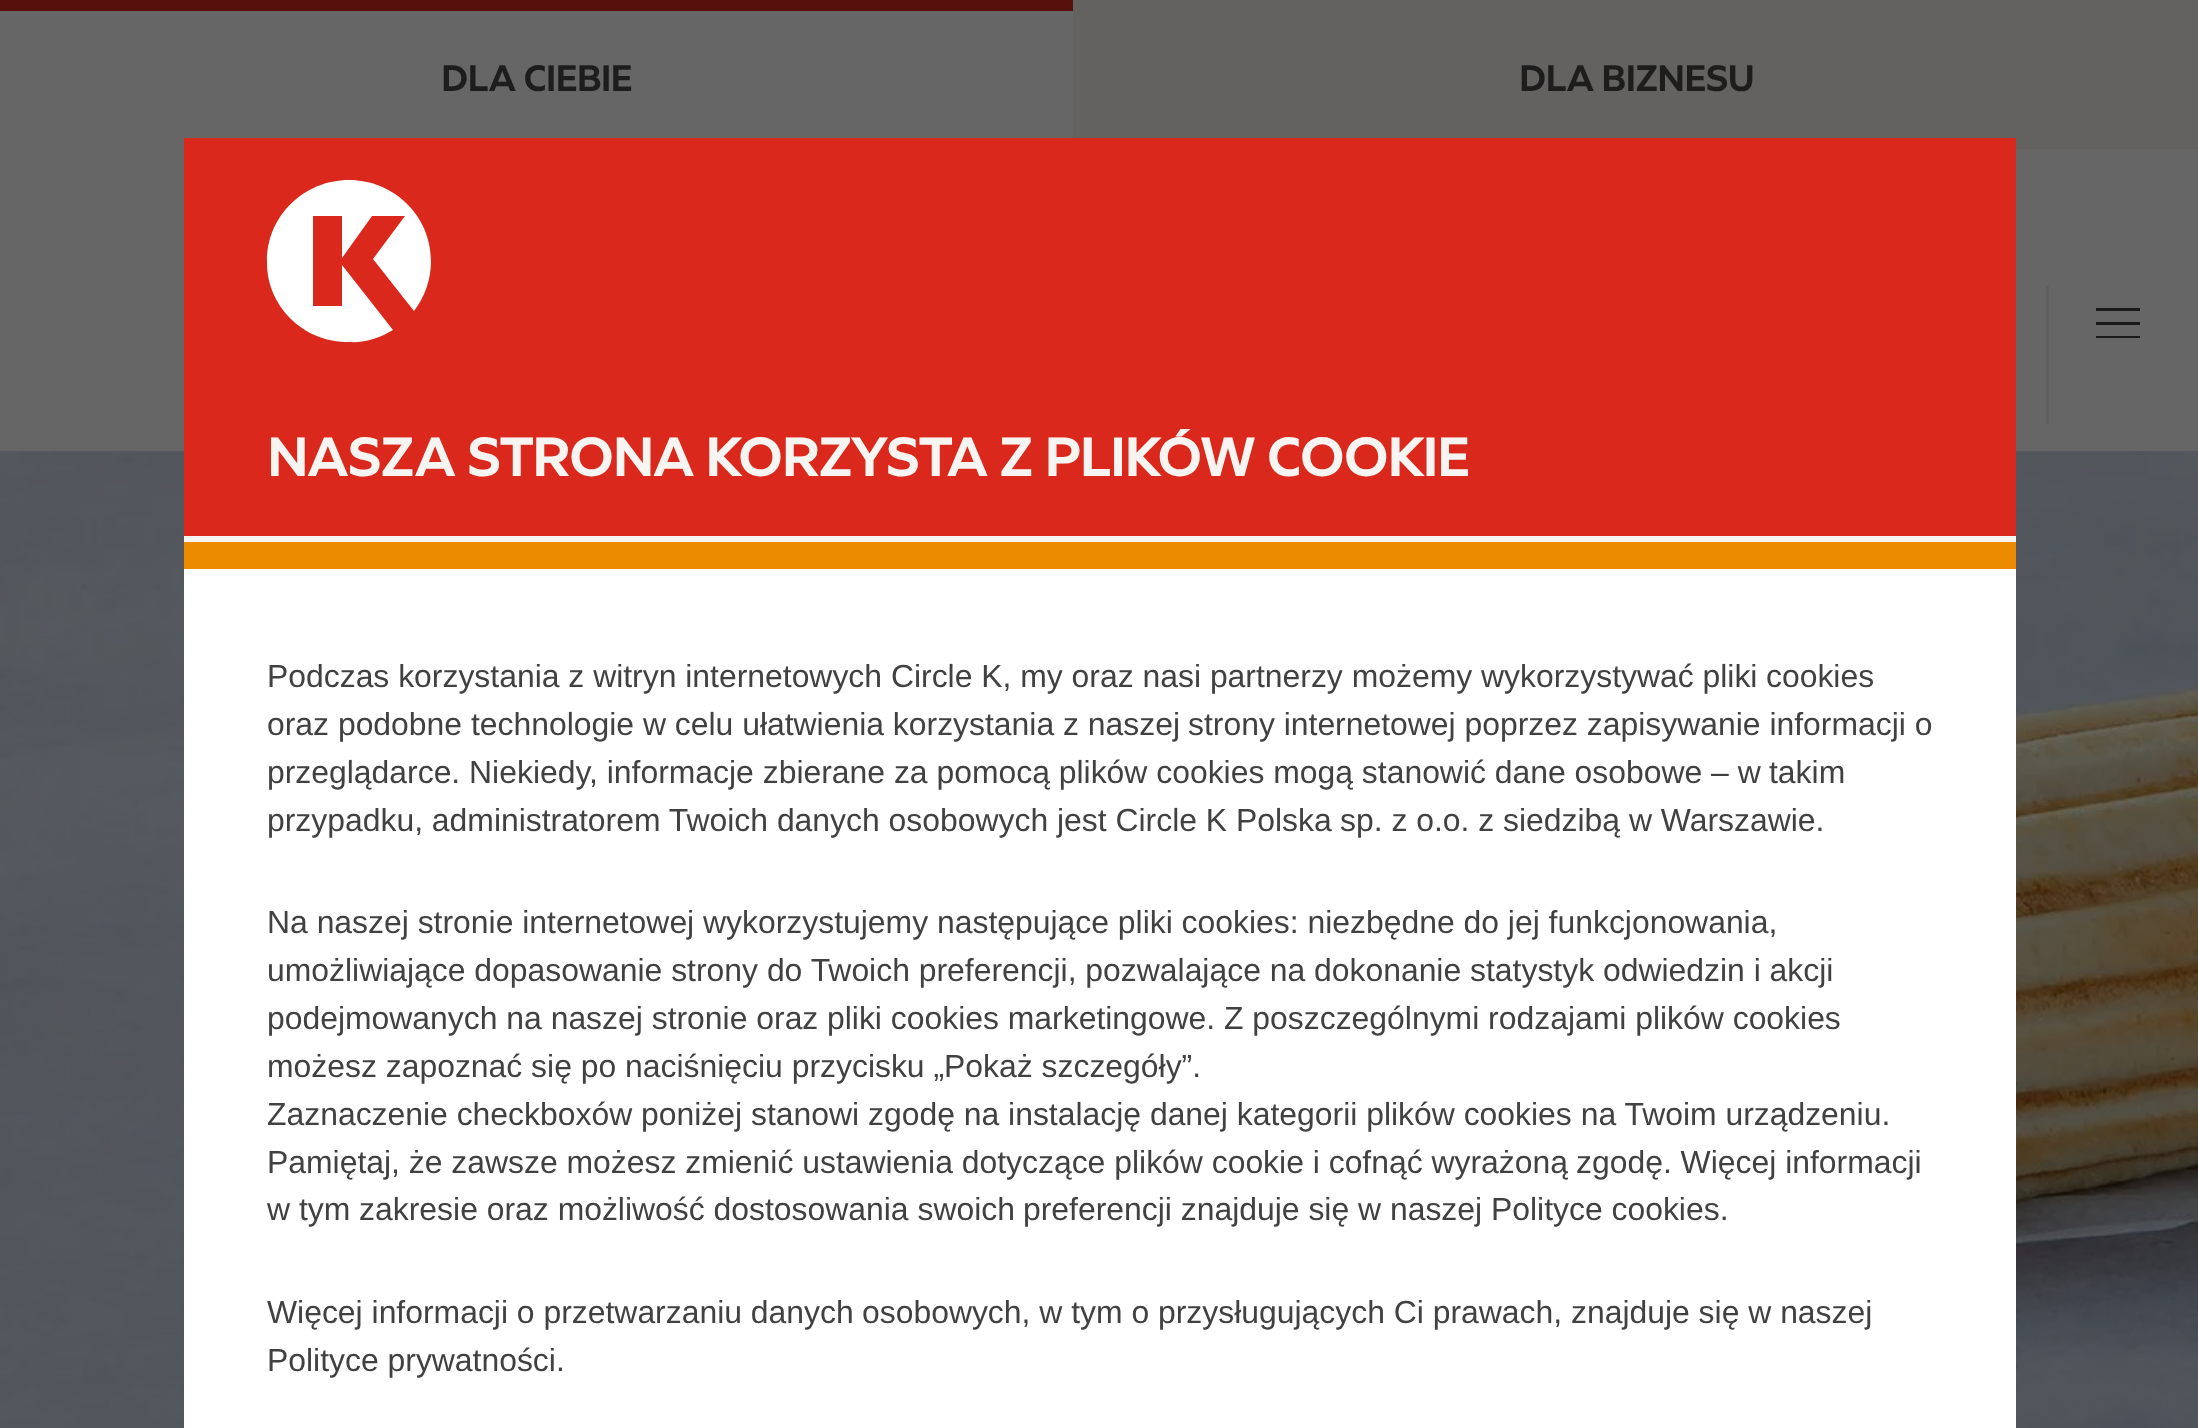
<!DOCTYPE html>
<meta charset="utf-8">
<style>body { margin: 0 } canvas { display: block }</style>
<canvas id="canvas" width="2198" height="1428"></canvas>
<img id="img1" src="images/1.png" hidden>
<script>
window.onload = function () {
    const canvas = document.getElementById('canvas');
    const context = canvas.getContext('2d');
    context.miterLimit = 4;
    context.fontKerning = 'normal';

    context.fillStyle = 'rgb(102, 102, 102)';
    context.fillRect(0, 0, 2198, 1428);
    context.fillStyle = 'rgb(99, 98, 97)';
    context.fillRect(1073, 0, 1125, 149);
    context.fillStyle = 'rgb(87, 16, 11)';
    context.fillRect(0, 0, 1073, 11);
    context.fillStyle = 'rgb(95, 95, 95)';
    context.fillRect(2046, 286, 3, 138);
    context.fillStyle = 'rgb(26, 26, 26)';
    context.fillRect(2096, 308, 44, 3);
    context.fillRect(2096, 322, 44, 3);
    context.fillRect(2096, 336, 44, 2);
    context.drawImage(document.getElementById('img1'), 0, 451, 2198, 977);
    context.fillStyle = 'rgb(255, 255, 255)';
    context.fillRect(184, 569, 1832, 859);
    context.fillStyle = 'rgb(218, 41, 28)';
    context.fillRect(184, 138, 1832, 398);
    context.fillStyle = 'rgb(247, 245, 242)';
    context.fillRect(184, 536, 1832, 6);
    context.fillStyle = 'rgb(255, 255, 255)';
    context.beginPath();
    context.moveTo(373, 259);
    context.lineTo(405, 216);
    context.lineTo(372, 216);
    context.lineTo(342, 258);
    context.lineTo(342, 216);
    context.lineTo(313, 216);
    context.lineTo(313, 306);
    context.lineTo(342, 306);
    context.lineTo(342, 265);
    context.lineTo(393, 330);
    context.bezierCurveTo(380, 338, 365, 343, 349, 342);
    context.bezierCurveTo(304, 343, 266, 306, 267, 261);
    context.bezierCurveTo(267, 216, 304, 180, 349, 180);
    context.bezierCurveTo(394, 180, 431, 216, 431, 261);
    context.bezierCurveTo(431, 279, 425, 297, 414, 311);
    context.closePath();
    context.fill();
    context.fillStyle = 'rgb(237, 139, 0)';
    context.fillRect(184, 542, 1832, 27);
    context.font = 'bold 35.25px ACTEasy';
    context.fillStyle = 'rgb(29, 29, 29)';
    context.fillText('DLA CIEBIE', 441, 91);
    context.fillText('DLA BIZNESU', 1519, 91);
    context.font = 'bold 52.8px ACTEasy';
    context.fillStyle = 'rgb(247, 245, 242)';
    context.fillText('NASZA STRONA KORZYSTA Z PLIKÓW COOKIE', 267, 476);
    context.font = '31.9px Liberation Sans';
    context.fillStyle = 'rgb(65, 65, 65)';
    context.fillText('Podczas korzystania z witryn internetowych Circle K, my oraz nasi partnerzy możemy wykorzystywać pliki', 267, 687);
    context.fillText('cookies', 1766, 687);
    context.fillText('oraz podobne technologie w celu ułatwienia korzystania z naszej', 267, 735);
    context.fillText('strony internetowej poprzez zapisywanie informacji o', 1188, 735);
    context.fillText('przeglądarce. Niekiedy, informacje zbierane za pomocą plików cookies mogą stanowić dane osobowe – w', 267, 783);
    context.fillText('takim', 1769, 783);
    context.fillText('przypadku, administratorem Twoich danych osobowych jest Circle K Polska', 267, 831);
    context.fillText('sp. z o.o. z siedzibą w Warszawie.', 1340, 831);
    context.fillText('Na naszej stronie internetowej wykorzystujemy następujące pliki cookies: niezbędne do jej funkcjonowania,', 267, 933);
    context.fillText('umożliwiające dopasowanie strony do Twoich preferencji, pozwalające na', 267, 981);
    context.fillText('dokonanie statystyk odwiedzin i akcji', 1314, 981);
    context.fillText('podejmowanych na naszej stronie oraz', 267, 1029);
    context.fillText('pliki cookies marketingowe. Z poszczególnymi rodzajami plików cookies', 827, 1029);
    context.fillText('możesz zapoznać się po naciśnięciu przycisku „Pokaż szczegóły”.', 267, 1077);
    context.fillText('Zaznaczenie checkboxów poniżej stanowi', 267, 1125);
    context.fillText('zgodę na instalację danej kategorii plików cookies na Twoim urządzeniu.', 868, 1125);
    context.fillText('Pamiętaj, że zawsze możesz zmienić ustawienia dotyczące plików cookie i cofnąć wyrażoną', 267, 1173);
    context.fillText('zgodę. Więcej informacji', 1576, 1173);
    context.fillText('w tym zakresie oraz możliwość dostosowania swoich', 267, 1220);
    context.fillText('preferencji znajduje się w naszej Polityce cookies.', 1023, 1220);
    context.fillText('Więcej informacji o przetwarzaniu danych', 267, 1323);
    context.fillText('osobowych, w tym o przysługujących Ci prawach, znajduje się w naszej', 862, 1323);
    context.fillText('Polityce prywatności.', 267, 1371);
};
</script>
